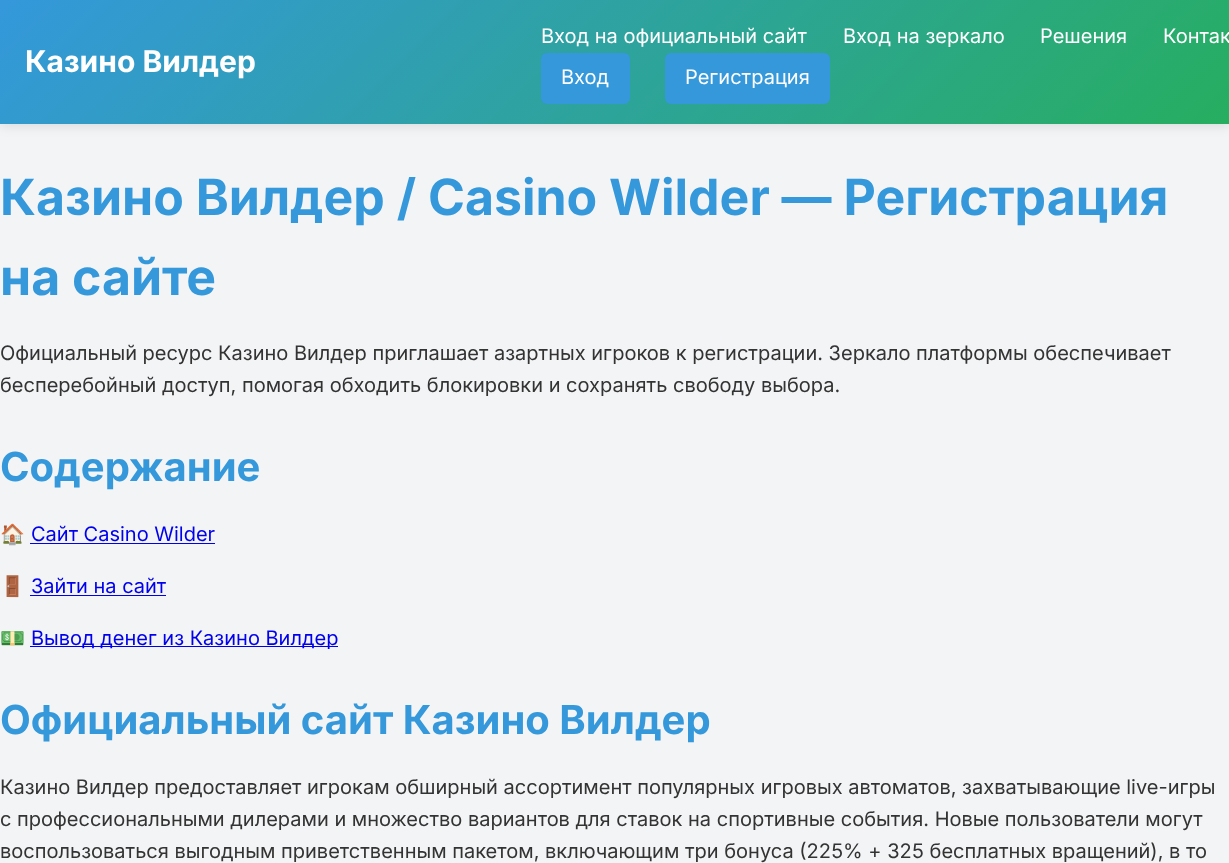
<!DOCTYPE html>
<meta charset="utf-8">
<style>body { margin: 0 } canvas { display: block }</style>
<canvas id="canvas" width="1229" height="863"></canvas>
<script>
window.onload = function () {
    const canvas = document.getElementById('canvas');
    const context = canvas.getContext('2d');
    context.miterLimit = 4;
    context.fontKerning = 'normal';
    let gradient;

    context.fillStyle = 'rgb(243, 244, 246)';
    context.fillRect(0, 0, 1229, 863);
    context.fillStyle = 'rgba(0, 0, 0, 0.1)';
    context.filter = 'blur(6px)';
    context.beginPath();
    context.rect(0, 3, 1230, 123);
    context.fill();
    context.filter = 'none';
    gradient = context.createLinearGradient(277, -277, 953, 400);
    gradient.addColorStop(0, 'rgb(52, 152, 219)');
    gradient.addColorStop(1, 'rgb(39, 174, 96)');
    context.fillStyle = gradient;
    context.fillRect(0, 0, 1229, 124);
    context.fillStyle = 'rgb(52, 152, 219)';
    context.beginPath();
    context.roundRect(541, 53, 89, 51, 6);
    context.fill();
    context.beginPath();
    context.roundRect(665, 53, 165, 51, 6);
    context.fill();
    context.fillStyle = 'rgb(0, 0, 238)';
    context.fillRect(30, 543, 185, 1);
    context.fillRect(30, 595, 136, 1);
    context.fillRect(30, 646, 308, 1);
    context.font = 'bold 30px Inter';
    context.fillStyle = 'rgb(255, 255, 255)';
    context.fillText('Казино Вилдер', 25, 72);
    context.font = '20px Inter';
    context.fillText('Вход на официальный сайт', 541, 43);
    context.fillText('Вход на зеркало', 843, 43);
    context.fillText('Решения', 1040, 43);
    context.fillText('Контак', 1163, 43);
    context.fillText('Вход', 561, 84);
    context.fillText('Регистрация', 685, 84);
    context.font = 'bold 50px Inter';
    context.fillStyle = 'rgb(52, 152, 219)';
    context.fillText('Казино Вилдер / Casino Wilder — Регистрация', 0, 215);
    context.fillText('на сайте', 0, 295);
    context.font = '20px Inter';
    context.fillStyle = 'rgb(51, 51, 51)';
    context.fillText('Официальный ресурс Казино Вилдер приглашает азартных игроков к регистрации. Зеркало платформы обеспечивает', 0, 360);
    context.fillText('бесперебойный доступ, помогая обходить блокировки и сохранять свободу выбора.', 0, 392);
    context.font = 'bold 40px Inter';
    context.fillStyle = 'rgb(52, 152, 219)';
    context.fillText('Содержание', 0, 481);
    context.font = '20px Noto Color Emoji';
    context.fillStyle = 'rgb(51, 51, 51)';
    context.fillText('🏠', 0, 541);
    context.font = '20px Inter';
    context.fillStyle = 'rgb(0, 0, 238)';
    context.fillText('Сайт Casino Wilder', 31, 541);
    context.font = '20px Noto Color Emoji';
    context.fillStyle = 'rgb(51, 51, 51)';
    context.fillText('🚪', 0, 593);
    context.font = '20px Inter';
    context.fillStyle = 'rgb(0, 0, 238)';
    context.fillText('Зайти на сайт', 31, 593);
    context.font = '20px Noto Color Emoji';
    context.fillStyle = 'rgb(51, 51, 51)';
    context.fillText('💵', 0, 645);
    context.font = '20px Inter';
    context.fillStyle = 'rgb(0, 0, 238)';
    context.fillText('Вывод денег из Казино Вилдер', 31, 645);
    context.font = 'bold 40px Inter';
    context.fillStyle = 'rgb(52, 152, 219)';
    context.fillText('Официальный сайт Казино Вилдер', 0, 734);
    context.font = '20px Inter';
    context.fillStyle = 'rgb(51, 51, 51)';
    context.fillText('Казино Вилдер предоставляет игрокам обширный ассортимент популярных игровых автоматов, захватывающие live-игры', 0, 794);
    context.fillText('с профессиональными дилерами и множество вариантов для ставок на спортивные события. Новые пользователи могут', 0, 826);
    context.fillText('воспользоваться выгодным приветственным пакетом, включающим три бонуса (225% + 325 бесплатных вращений), в то', 0, 858);
};
</script>
